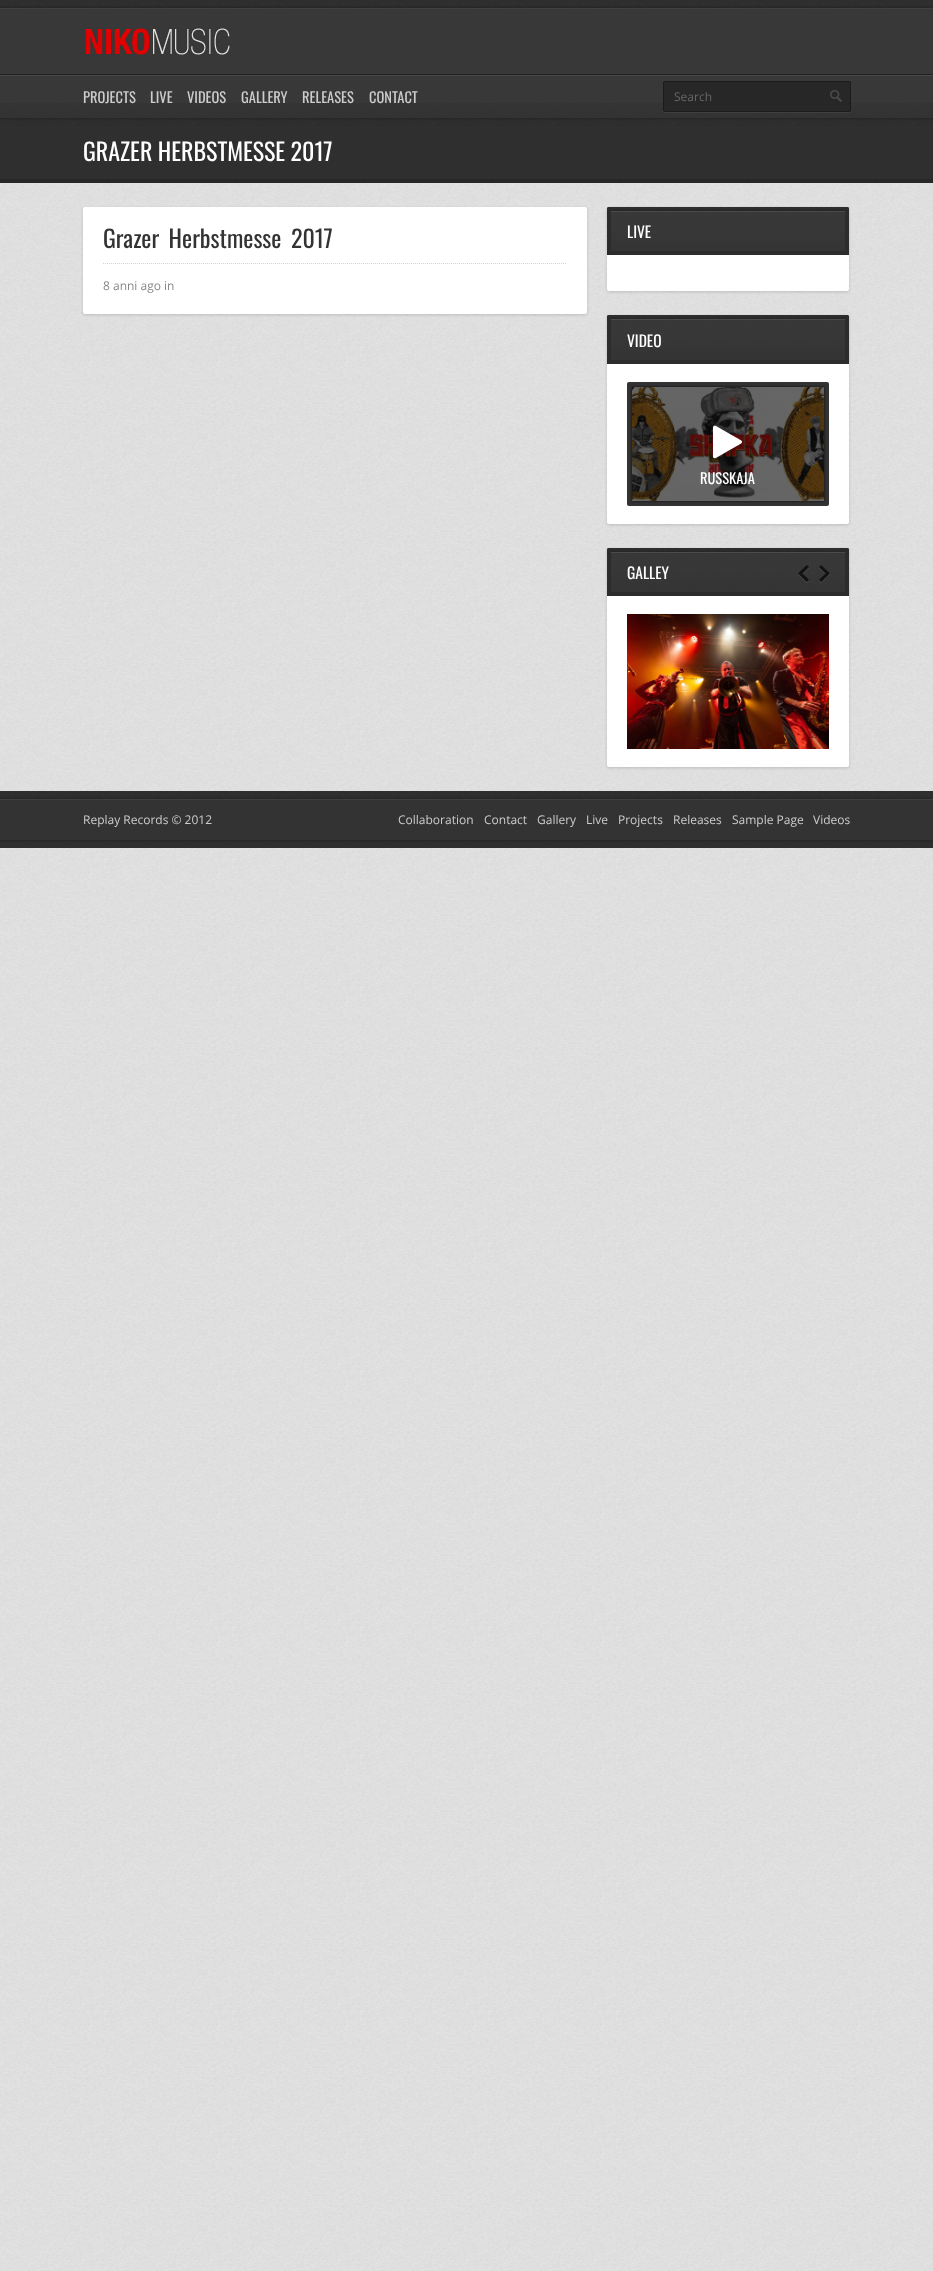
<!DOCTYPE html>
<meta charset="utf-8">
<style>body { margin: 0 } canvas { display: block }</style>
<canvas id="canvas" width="933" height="2271"></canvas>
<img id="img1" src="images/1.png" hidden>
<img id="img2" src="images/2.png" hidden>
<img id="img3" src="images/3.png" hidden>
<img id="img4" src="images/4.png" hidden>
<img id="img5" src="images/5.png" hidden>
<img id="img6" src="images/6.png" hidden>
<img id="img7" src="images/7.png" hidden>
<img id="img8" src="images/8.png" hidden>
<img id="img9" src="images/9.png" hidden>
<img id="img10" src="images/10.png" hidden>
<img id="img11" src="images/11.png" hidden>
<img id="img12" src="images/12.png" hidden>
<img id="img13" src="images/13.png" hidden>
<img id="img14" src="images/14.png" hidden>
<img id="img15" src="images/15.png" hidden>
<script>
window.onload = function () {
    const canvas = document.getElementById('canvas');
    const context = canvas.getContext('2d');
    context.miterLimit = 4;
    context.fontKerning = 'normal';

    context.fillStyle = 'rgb(255, 255, 255)';
    context.fillRect(0, 0, 933, 2271);
    context.drawImage(document.getElementById('img1'), 0, 183, 933, 2088);
    context.fillStyle = 'rgb(56, 56, 56)';
    context.fillRect(0, 9, 933, 94);
    context.drawImage(document.getElementById('img2'), 0, 103, 933, 23);
    context.drawImage(document.getElementById('img3'), 0, 0, 933, 9);
    context.drawImage(document.getElementById('img4'), 85, 28, 145, 27);
    context.drawImage(document.getElementById('img5'), 0, 74, 933, 2);
    context.fillStyle = 'rgb(63, 63, 63)';
    context.beginPath();
    context.moveTo(663, 110);
    context.lineTo(663, 111);
    context.bezierCurveTo(663, 112, 664, 113, 665, 113);
    context.lineTo(849, 113);
    context.bezierCurveTo(850, 113, 851, 112, 851, 111);
    context.lineTo(851, 110);
    context.bezierCurveTo(851, 111, 850, 112, 849, 112);
    context.lineTo(665, 112);
    context.bezierCurveTo(664, 112, 663, 111, 663, 110);
    context.closePath();
    context.fill();
    context.fillStyle = 'rgb(39, 39, 39)';
    context.beginPath();
    context.roundRect(663, 81, 188, 31, 2);
    context.fill();
    context.drawImage(document.getElementById('img6'), 830, 90, 12, 12);
    context.beginPath();
    context.roundRect(663.5, 81.5, 187, 30, 1.5);
    context.strokeStyle = 'rgb(27, 27, 27)';
    context.stroke();
    context.fillStyle = 'rgb(47, 47, 47)';
    context.fillRect(0, 126, 933, 53);
    context.fillStyle = 'rgb(39, 39, 39)';
    context.fillRect(0, 179, 933, 4);
    context.fillStyle = 'rgba(0, 0, 0, 0.15)';
    context.filter = 'blur(1.5px)';
    context.beginPath();
    context.roundRect(83, 208, 504, 107, 2);
    context.fill();
    context.filter = 'none';
    context.fillStyle = 'rgb(255, 255, 255)';
    context.beginPath();
    context.roundRect(83, 207, 504, 107, 2);
    context.fill();
    context.beginPath();
    context.moveTo(103, 263.5);
    context.lineTo(567, 263.5);
    context.strokeStyle = 'rgb(210, 210, 210)';
    context.setLineDash([1, 1]);
    context.stroke();
    context.fillStyle = 'rgba(0, 0, 0, 0.15)';
    context.filter = 'blur(1.5px)';
    context.beginPath();
    context.roundRect(607, 208, 242, 84, 2);
    context.fill();
    context.filter = 'none';
    context.drawImage(document.getElementById('img7'), 607, 207, 242, 44);
    context.fillStyle = 'rgb(44, 44, 44)';
    context.beginPath();
    context.roundRect(845, 207, 4, 48, [0, 2, 0, 0]);
    context.fill();
    context.fillRect(607, 251, 242, 4);
    context.beginPath();
    context.roundRect(607, 207, 4, 48, [2, 0, 0, 0]);
    context.fill();
    context.fillStyle = 'rgb(255, 255, 255)';
    context.beginPath();
    context.roundRect(607, 255, 242, 36, [0, 0, 2, 2]);
    context.fill();
    context.fillStyle = 'rgba(0, 0, 0, 0.15)';
    context.filter = 'blur(1.5px)';
    context.beginPath();
    context.roundRect(607, 316, 242, 209, 2);
    context.fill();
    context.filter = 'none';
    context.drawImage(document.getElementById('img8'), 607, 315, 242, 45);
    context.fillStyle = 'rgb(44, 44, 44)';
    context.beginPath();
    context.roundRect(845, 315, 4, 49, [0, 2, 0, 0]);
    context.fill();
    context.fillRect(607, 360, 242, 4);
    context.beginPath();
    context.roundRect(607, 315, 4, 49, [2, 0, 0, 0]);
    context.fill();
    context.fillStyle = 'rgb(255, 255, 255)';
    context.beginPath();
    context.roundRect(607, 364, 242, 160, [0, 0, 2, 2]);
    context.fill();
    context.fillStyle = 'rgb(51, 51, 51)';
    context.beginPath();
    context.roundRect(627, 382, 202, 124, 2);
    context.fill();
    context.fillStyle = 'rgb(14, 14, 14)';
    context.filter = 'blur(1.5px)';
    context.beginPath();
    context.rect(632, 387, 192, 114);
    context.fill();
    context.filter = 'none';
    context.drawImage(document.getElementById('img9'), 632, 387, 192, 114);
    context.drawImage(document.getElementById('img10'), 713, 425, 29, 34);
    context.fillStyle = 'rgba(0, 0, 0, 0.15)';
    context.filter = 'blur(1.5px)';
    context.beginPath();
    context.roundRect(607, 549, 242, 219, 2);
    context.fill();
    context.filter = 'none';
    context.drawImage(document.getElementById('img11'), 607, 548, 242, 44);
    context.fillStyle = 'rgb(44, 44, 44)';
    context.beginPath();
    context.roundRect(845, 548, 4, 48, [0, 2, 0, 0]);
    context.fill();
    context.fillRect(607, 592, 242, 4);
    context.beginPath();
    context.roundRect(607, 548, 4, 48, [2, 0, 0, 0]);
    context.fill();
    context.drawImage(document.getElementById('img12'), 798, 565, 11, 18);
    context.drawImage(document.getElementById('img13'), 819, 565, 11, 18);
    context.fillStyle = 'rgb(255, 255, 255)';
    context.beginPath();
    context.roundRect(607, 596, 242, 171, [0, 0, 2, 2]);
    context.fill();
    context.drawImage(document.getElementById('img14'), 627, 614, 202, 135);
    context.drawImage(document.getElementById('img3'), 0, 791, 933, 9);
    context.fillStyle = 'rgb(51, 51, 51)';
    context.fillRect(0, 800, 933, 40);
    context.drawImage(document.getElementById('img15'), 0, 840, 933, 8);
    context.font = '14.5px Oswald';
    context.fillStyle = 'rgb(204, 204, 204)';
    context.fillText('PROJECTS', 83, 103);
    context.fillText('LIVE', 150, 103);
    context.fillText('VIDEOS', 187, 103);
    context.fillText('GALLERY', 241, 103);
    context.fillText('RELEASES', 302, 103);
    context.fillText('CONTACT', 369, 103);
    context.font = '12px Open Sans';
    context.fillStyle = 'rgb(102, 102, 102)';
    context.fillText('Search', 674, 101);
    context.font = '24px Oswald';
    context.fillStyle = 'rgb(255, 255, 255)';
    context.fillText('GRAZER HERBSTMESSE 2017', 83, 161);
    context.wordSpacing = '4px';
    context.fillStyle = 'rgb(51, 51, 51)';
    context.fillText('Grazer Herbstmesse 2017', 103, 248);
    context.wordSpacing = '0px';
    context.font = '12px Open Sans';
    context.fillStyle = 'rgb(136, 136, 136)';
    context.fillText('8 anni ago in', 103, 290);
    context.font = '15.5px Oswald';
    context.fillStyle = 'rgb(255, 255, 255)';
    context.fillText('LIVE', 627, 238);
    context.fillText('VIDEO', 627, 347);
    context.font = '14.5px Oswald';
    context.fillText('RUSSKAJA', 700, 484);
    context.font = '15.5px Oswald';
    context.fillText('GALLEY', 627, 579);
    context.font = '12px Open Sans';
    context.fillStyle = 'rgb(204, 204, 204)';
    context.fillText('Replay Records © 2012', 83, 824);
    context.fillText('Collaboration', 398, 824);
    context.fillText('Contact', 484, 824);
    context.fillText('Gallery', 537, 824);
    context.fillText('Live', 586, 824);
    context.fillText('Projects', 618, 824);
    context.fillText('Releases', 673, 824);
    context.fillText('Sample Page', 732, 824);
    context.fillText('Videos', 813, 824);
};
</script>
